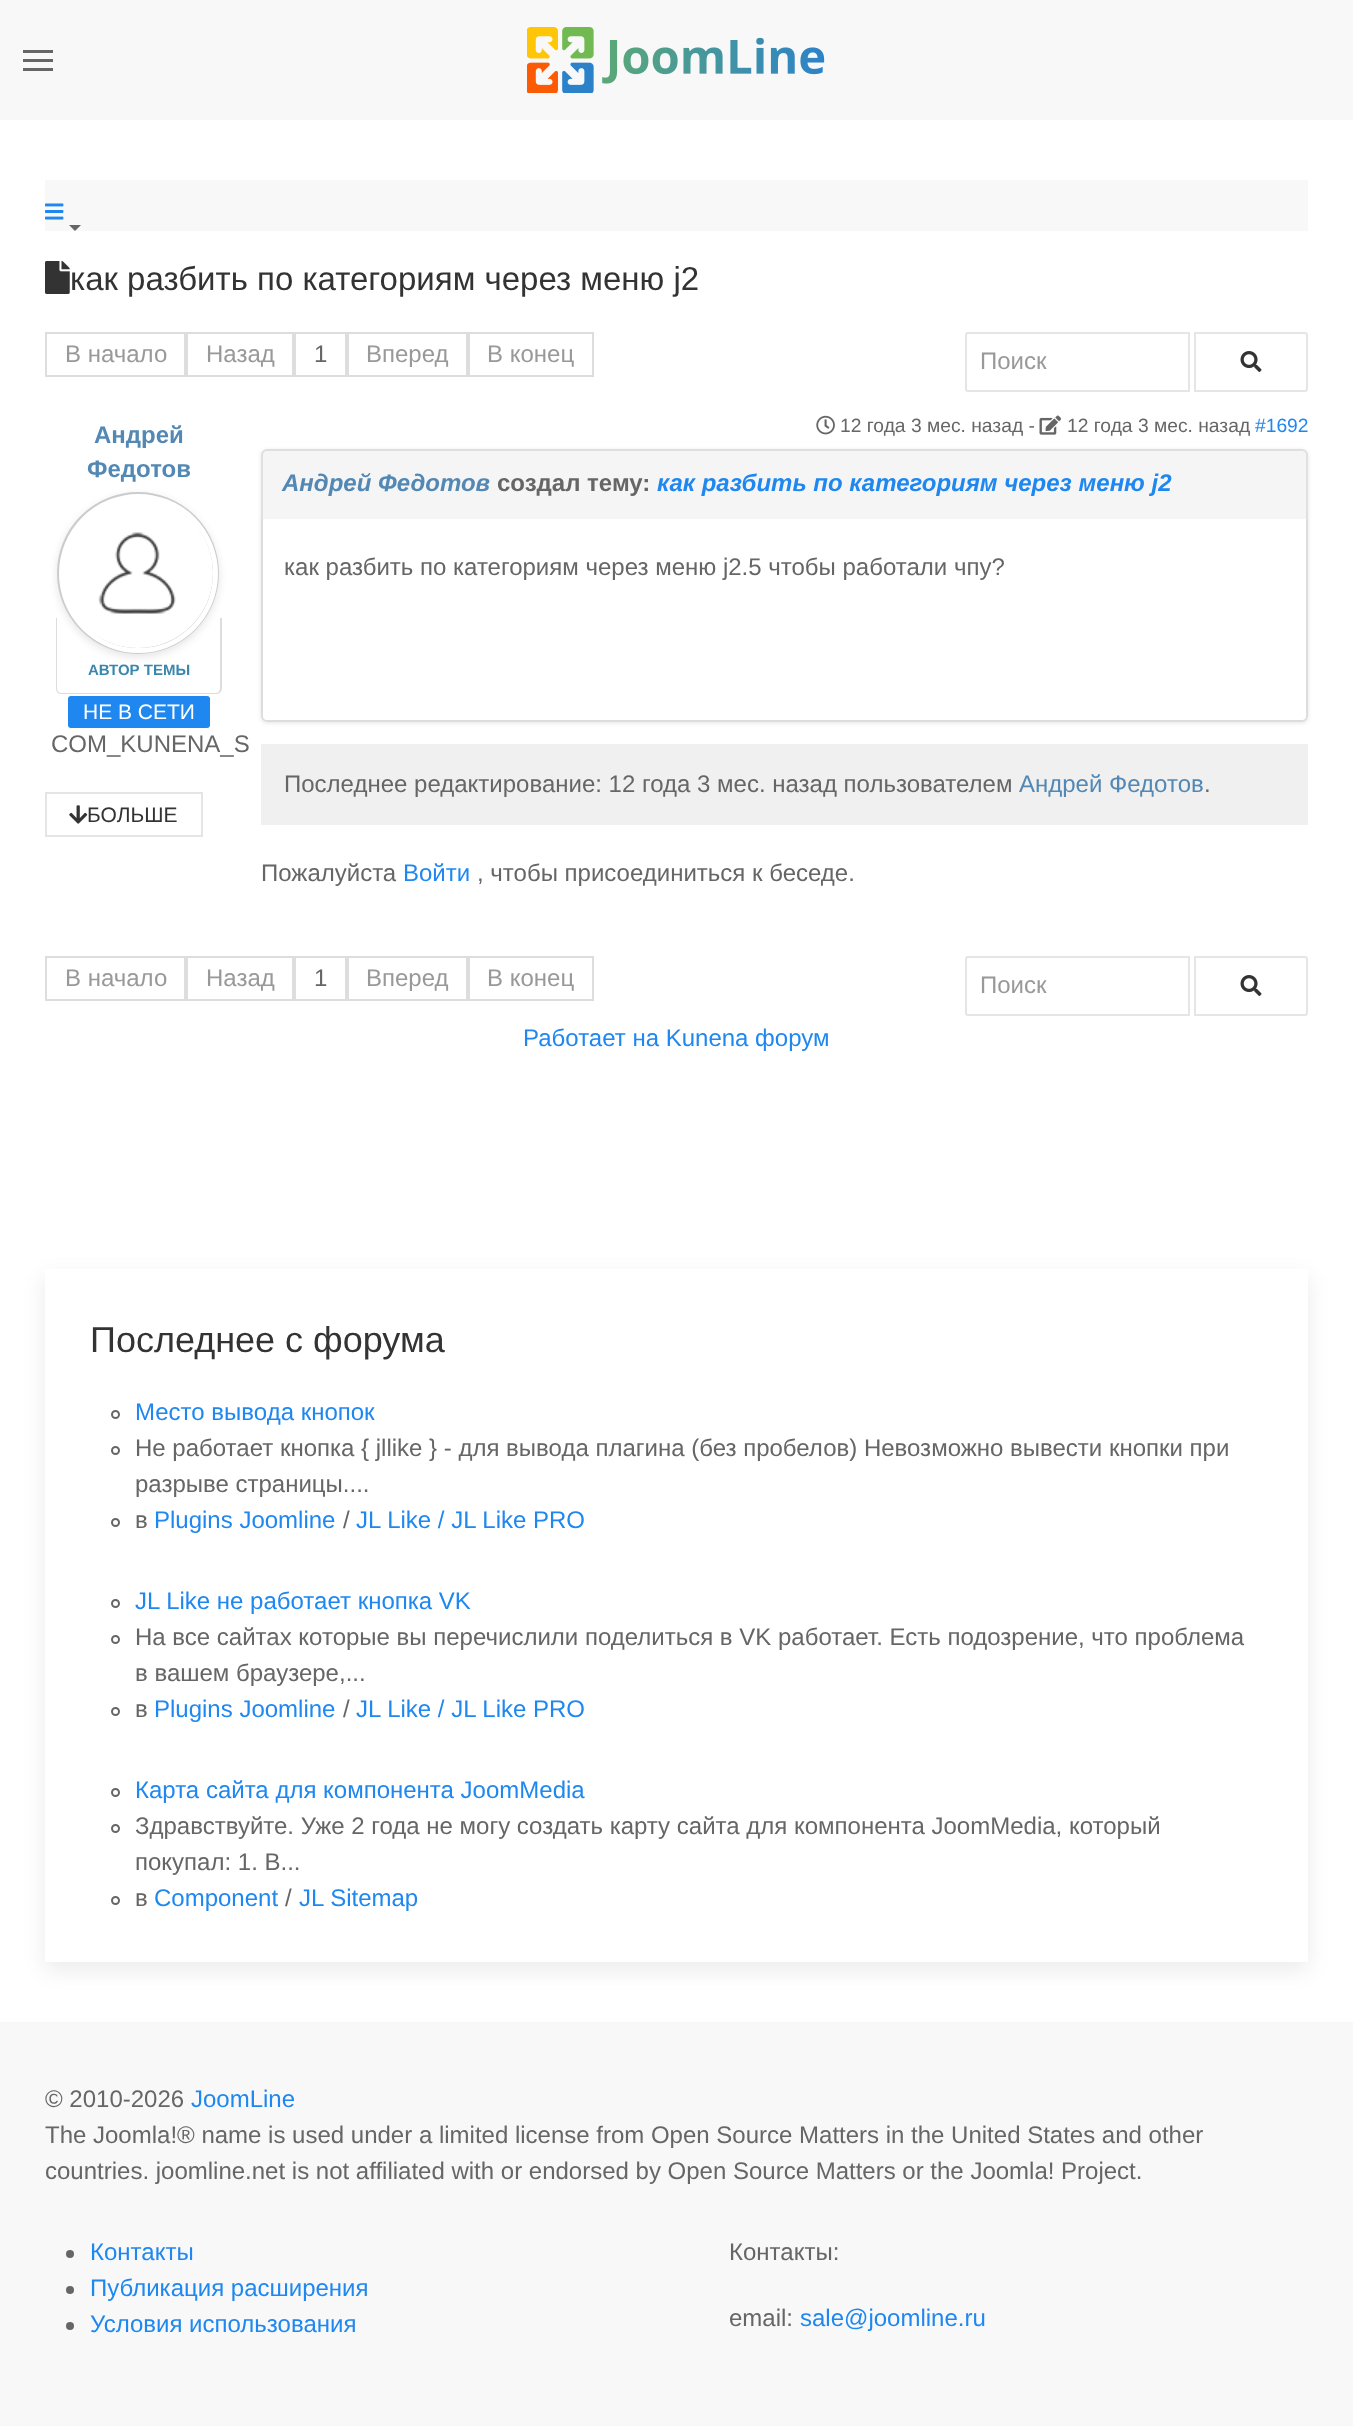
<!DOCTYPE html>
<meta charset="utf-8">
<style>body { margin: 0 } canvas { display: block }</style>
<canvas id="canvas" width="1353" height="2426"></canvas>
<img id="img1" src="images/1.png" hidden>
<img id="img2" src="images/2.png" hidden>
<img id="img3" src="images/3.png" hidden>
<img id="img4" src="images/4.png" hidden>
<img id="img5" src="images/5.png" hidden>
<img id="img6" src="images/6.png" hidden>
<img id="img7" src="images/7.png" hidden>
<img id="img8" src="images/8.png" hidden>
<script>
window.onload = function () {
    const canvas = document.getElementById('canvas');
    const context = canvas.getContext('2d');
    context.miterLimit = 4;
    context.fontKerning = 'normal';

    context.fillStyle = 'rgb(255, 255, 255)';
    context.fillRect(0, 0, 1353, 2426);
    context.fillStyle = 'rgb(248, 248, 248)';
    context.fillRect(0, 0, 1353, 120);
    context.fillStyle = 'rgb(102, 102, 102)';
    context.fillRect(23, 50, 30, 3);
    context.fillRect(23, 59, 30, 3);
    context.fillRect(23, 68, 30, 3);
    context.drawImage(document.getElementById('img1'), 527, 27, 298, 66);
    context.fillStyle = 'rgb(248, 248, 248)';
    context.fillRect(45, 180, 1263, 51);
    context.drawImage(document.getElementById('img2'), 45, 203, 19, 17);
    context.fillStyle = 'rgb(102, 102, 102)';
    context.beginPath();
    context.moveTo(69, 225);
    context.lineTo(81, 225);
    context.lineTo(75, 231);
    context.closePath();
    context.fill();
    context.drawImage(document.getElementById('img3'), 45, 261, 25, 33);
    context.strokeStyle = 'rgb(221, 221, 221)';
    context.lineWidth = 2;
    context.strokeRect(46, 333, 139, 43);
    context.strokeRect(187, 333, 106, 43);
    context.strokeRect(295, 333, 51, 43);
    context.strokeRect(348, 333, 119, 43);
    context.strokeRect(469, 333, 124, 43);
    context.beginPath();
    context.roundRect(966, 333, 223, 58, [2, 0, 0, 2]);
    context.strokeStyle = 'rgb(229, 229, 229)';
    context.stroke();
    context.beginPath();
    context.roundRect(1195, 333, 112, 58, [0, 2, 2, 0]);
    context.stroke();
    context.drawImage(document.getElementById('img4'), 1240, 351, 22, 21);
    context.fillStyle = 'rgb(221, 221, 221)';
    context.beginPath();
    context.moveTo(56, 618);
    context.lineTo(222, 618);
    context.lineTo(222, 688);
    context.bezierCurveTo(222, 692, 219, 694, 216, 694);
    context.lineTo(62, 694);
    context.bezierCurveTo(58, 694, 56, 692, 56, 688);
    context.closePath();
    context.moveTo(57, 618);
    context.lineTo(220, 618);
    context.lineTo(220, 688);
    context.bezierCurveTo(220, 691, 218, 693, 216, 693);
    context.lineTo(62, 693);
    context.bezierCurveTo(59, 693, 57, 691, 57, 688);
    context.closePath();
    context.fill('evenodd');
    context.save();
    context.beginPath();
    context.moveTo(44, 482);
    context.lineTo(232, 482);
    context.lineTo(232, 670);
    context.lineTo(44, 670);
    context.closePath();
    context.moveTo(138, 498);
    context.bezierCurveTo(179.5, 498, 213, 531.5, 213, 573);
    context.bezierCurveTo(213, 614.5, 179.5, 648, 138, 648);
    context.bezierCurveTo(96.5, 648, 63, 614.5, 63, 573);
    context.bezierCurveTo(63, 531.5, 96.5, 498, 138, 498);
    context.closePath();
    context.clip('evenodd');
    context.fillStyle = 'rgba(0, 0, 0, 0.1)';
    context.filter = 'blur(4px)';
    context.beginPath();
    context.roundRect(57, 495, 162, 162, 81);
    context.fill();
    context.filter = 'none';
    context.restore();
    context.beginPath();
    context.arc(138, 573, 78, 0, 2 * Math.PI);
    context.strokeStyle = 'rgb(204, 204, 204)';
    context.lineWidth = 6;
    context.stroke();
    context.beginPath();
    context.arc(138.5, 573.5, 77, 0, 2 * Math.PI);
    context.strokeStyle = 'rgb(255, 255, 255)';
    context.lineWidth = 5;
    context.stroke();
    context.drawImage(document.getElementById('img5'), 98, 532, 78, 82);
    context.fillStyle = 'rgb(30, 135, 240)';
    context.beginPath();
    context.roundRect(68, 696, 142, 32, 3);
    context.fill();
    context.strokeStyle = 'rgb(229, 229, 229)';
    context.lineWidth = 2;
    context.strokeRect(46, 793, 156, 43);
    context.drawImage(document.getElementById('img6'), 69, 805, 19, 19);
    context.drawImage(document.getElementById('img7'), 816, 415, 19, 20);
    context.drawImage(document.getElementById('img8'), 1039, 415, 23, 20);
    context.save();
    context.beginPath();
    context.moveTo(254, 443);
    context.lineTo(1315, 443);
    context.lineTo(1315, 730);
    context.lineTo(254, 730);
    context.closePath();
    context.moveTo(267, 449);
    context.lineTo(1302, 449);
    context.bezierCurveTo(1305.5, 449, 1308, 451.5, 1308, 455);
    context.lineTo(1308, 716);
    context.bezierCurveTo(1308, 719.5, 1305.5, 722, 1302, 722);
    context.lineTo(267, 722);
    context.bezierCurveTo(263.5, 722, 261, 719.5, 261, 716);
    context.lineTo(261, 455);
    context.bezierCurveTo(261, 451.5, 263.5, 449, 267, 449);
    context.closePath();
    context.clip('evenodd');
    context.fillStyle = 'rgba(0, 0, 0, 0.1)';
    context.filter = 'blur(2px)';
    context.beginPath();
    context.roundRect(261, 450, 1047, 273, 6);
    context.fill();
    context.filter = 'none';
    context.restore();
    context.beginPath();
    context.roundRect(262, 450, 1045, 271, 5);
    context.strokeStyle = 'rgb(221, 221, 221)';
    context.stroke();
    context.fillStyle = 'rgba(229, 229, 229, 0.4)';
    context.beginPath();
    context.roundRect(261, 450, 1047, 69, [6, 6, 0, 0]);
    context.fill();
    context.fillStyle = 'rgb(240, 240, 240)';
    context.fillRect(261, 744, 1047, 81);
    context.strokeRect(46, 957, 139, 43);
    context.strokeRect(187, 957, 106, 43);
    context.strokeRect(295, 957, 51, 43);
    context.strokeRect(348, 957, 119, 43);
    context.strokeRect(469, 957, 124, 43);
    context.beginPath();
    context.roundRect(966, 957, 223, 58, [2, 0, 0, 2]);
    context.strokeStyle = 'rgb(229, 229, 229)';
    context.stroke();
    context.beginPath();
    context.roundRect(1195, 957, 112, 58, [0, 2, 2, 0]);
    context.stroke();
    context.drawImage(document.getElementById('img4'), 1240, 975, 22, 21);
    context.save();
    context.beginPath();
    context.moveTo(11, 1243);
    context.lineTo(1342, 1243);
    context.lineTo(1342, 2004);
    context.lineTo(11, 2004);
    context.closePath();
    context.moveTo(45, 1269);
    context.lineTo(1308, 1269);
    context.lineTo(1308, 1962);
    context.lineTo(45, 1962);
    context.closePath();
    context.clip('evenodd');
    context.fillStyle = 'rgba(0, 0, 0, 0.08)';
    context.filter = 'blur(11px)';
    context.beginPath();
    context.rect(45, 1277, 1263, 693);
    context.fill();
    context.filter = 'none';
    context.restore();
    context.beginPath();
    context.arc(115.5, 1414.5, 3.5, 0, 2 * Math.PI);
    context.strokeStyle = 'rgb(102, 102, 102)';
    context.stroke();
    context.beginPath();
    context.arc(115.5, 1450.5, 3.5, 0, 2 * Math.PI);
    context.stroke();
    context.beginPath();
    context.arc(115.5, 1522.5, 3.5, 0, 2 * Math.PI);
    context.stroke();
    context.beginPath();
    context.arc(115.5, 1603.5, 3.5, 0, 2 * Math.PI);
    context.stroke();
    context.beginPath();
    context.arc(115.5, 1639.5, 3.5, 0, 2 * Math.PI);
    context.stroke();
    context.beginPath();
    context.arc(115.5, 1711.5, 3.5, 0, 2 * Math.PI);
    context.stroke();
    context.beginPath();
    context.arc(115.5, 1792.5, 3.5, 0, 2 * Math.PI);
    context.stroke();
    context.beginPath();
    context.arc(115.5, 1828.5, 3.5, 0, 2 * Math.PI);
    context.stroke();
    context.beginPath();
    context.arc(115.5, 1900.5, 3.5, 0, 2 * Math.PI);
    context.stroke();
    context.fillStyle = 'rgb(248, 248, 248)';
    context.fillRect(0, 2022, 1353, 404);
    context.fillStyle = 'rgb(102, 102, 102)';
    context.beginPath();
    context.arc(70, 2254, 4, 0, 2 * Math.PI);
    context.fill();
    context.beginPath();
    context.arc(70, 2290, 4, 0, 2 * Math.PI);
    context.fill();
    context.beginPath();
    context.arc(70, 2326, 4, 0, 2 * Math.PI);
    context.fill();
    context.font = '33px Liberation Sans';
    context.fillStyle = 'rgb(51, 51, 51)';
    context.fillText('как разбить по категориям через меню j2', 70, 290);
    context.font = '24px Liberation Sans';
    context.fillStyle = 'rgb(153, 153, 153)';
    context.fillText('В начало', 65, 362);
    context.fillText('Назад', 206, 362);
    context.fillStyle = 'rgb(102, 102, 102)';
    context.fillText('1', 314, 362);
    context.fillStyle = 'rgb(153, 153, 153)';
    context.fillText('Вперед', 366, 362);
    context.fillText('В конец', 487, 362);
    context.fillText('Поиск', 980, 369);
    context.font = 'bold 24px Liberation Sans';
    context.fillStyle = 'rgb(83, 136, 180)';
    context.fillText('Андрей', 94, 443);
    context.fillText('Федотов', 87, 477);
    context.font = 'bold 15px Liberation Sans';
    context.fillStyle = 'rgb(58, 135, 173)';
    context.fillText('АВТОР ТЕМЫ', 88, 675);
    context.font = '21px Liberation Sans';
    context.fillStyle = 'rgb(255, 255, 255)';
    context.fillText('НЕ В СЕТИ', 83, 719);
    context.font = '24px Liberation Sans';
    context.fillStyle = 'rgb(102, 102, 102)';
    context.fillText('COM_KUNENA_S', 51, 752);
    context.font = '21px Liberation Sans';
    context.fillStyle = 'rgb(51, 51, 51)';
    context.fillText('БОЛЬШЕ', 87, 822);
    context.font = '19.25px Liberation Sans';
    context.fillStyle = 'rgb(102, 102, 102)';
    context.fillText('12 года 3 мес. назад -', 840, 432);
    context.fillText('12 года 3 мес. назад', 1067, 432);
    context.fillStyle = 'rgb(30, 135, 240)';
    context.fillText('#1692', 1255, 432);
    context.font = 'italic bold 24px Liberation Sans';
    context.fillStyle = 'rgb(83, 136, 180)';
    context.fillText('Андрей Федотов', 282, 491);
    context.font = 'bold 24px Liberation Sans';
    context.fillStyle = 'rgb(102, 102, 102)';
    context.fillText('создал тему:', 497, 491);
    context.font = 'italic bold 24px Liberation Sans';
    context.fillStyle = 'rgb(30, 135, 240)';
    context.fillText('как разбить по категориям через меню j2', 657, 491);
    context.font = '24px Liberation Sans';
    context.fillStyle = 'rgb(102, 102, 102)';
    context.fillText('как разбить по категориям через меню j2.5 чтобы работали чпу?', 284, 575);
    context.fillText('Последнее редактирование: 12 года 3 мес. назад пользователем', 284, 792);
    context.fillStyle = 'rgb(83, 136, 180)';
    context.fillText('Андрей Федотов', 1019, 792);
    context.fillStyle = 'rgb(102, 102, 102)';
    context.fillText('.', 1204, 792);
    context.fillText('Пожалуйста', 261, 881);
    context.fillStyle = 'rgb(30, 135, 240)';
    context.fillText('Войти', 403, 881);
    context.fillStyle = 'rgb(102, 102, 102)';
    context.fillText(', чтобы присоединиться к беседе.', 477, 881);
    context.fillStyle = 'rgb(153, 153, 153)';
    context.fillText('В начало', 65, 986);
    context.fillText('Назад', 206, 986);
    context.fillStyle = 'rgb(102, 102, 102)';
    context.fillText('1', 314, 986);
    context.fillStyle = 'rgb(153, 153, 153)';
    context.fillText('Вперед', 366, 986);
    context.fillText('В конец', 487, 986);
    context.fillText('Поиск', 980, 993);
    context.fillStyle = 'rgb(30, 135, 240)';
    context.fillText('Работает на Kunena форум', 523, 1046);
    context.font = '36px Liberation Sans';
    context.fillStyle = 'rgb(51, 51, 51)';
    context.fillText('Последнее с форума', 90, 1352);
    context.font = '24px Liberation Sans';
    context.fillStyle = 'rgb(30, 135, 240)';
    context.fillText('Место вывода кнопок', 135, 1420);
    context.fillStyle = 'rgb(102, 102, 102)';
    context.fillText('Не работает кнопка { jllike } - для вывода плагина (без пробелов) Невозможно вывести кнопки при', 135, 1456);
    context.fillText('разрыве страницы....', 135, 1492);
    context.fillText('в', 135, 1528);
    context.fillStyle = 'rgb(30, 135, 240)';
    context.fillText('Plugins Joomline', 154, 1528);
    context.fillStyle = 'rgb(102, 102, 102)';
    context.fillText('/', 343, 1528);
    context.fillStyle = 'rgb(30, 135, 240)';
    context.fillText('JL Like / JL Like PRO', 356, 1528);
    context.fillText('JL Like не работает кнопка VK', 135, 1609);
    context.fillStyle = 'rgb(102, 102, 102)';
    context.fillText('На все сайтах которые вы перечислили поделиться в VK работает. Есть подозрение, что проблема', 135, 1645);
    context.fillText('в вашем браузере,...', 135, 1681);
    context.fillText('в', 135, 1717);
    context.fillStyle = 'rgb(30, 135, 240)';
    context.fillText('Plugins Joomline', 154, 1717);
    context.fillStyle = 'rgb(102, 102, 102)';
    context.fillText('/', 343, 1717);
    context.fillStyle = 'rgb(30, 135, 240)';
    context.fillText('JL Like / JL Like PRO', 356, 1717);
    context.fillText('Карта сайта для компонента JoomMedia', 135, 1798);
    context.fillStyle = 'rgb(102, 102, 102)';
    context.fillText('Здравствуйте. Уже 2 года не могу создать карту сайта для компонента JoomMedia, который', 135, 1834);
    context.fillText('покупал: 1. В...', 135, 1870);
    context.fillText('в', 135, 1906);
    context.fillStyle = 'rgb(30, 135, 240)';
    context.fillText('Component', 154, 1906);
    context.fillStyle = 'rgb(102, 102, 102)';
    context.fillText('/', 285, 1906);
    context.fillStyle = 'rgb(30, 135, 240)';
    context.fillText('JL Sitemap', 299, 1906);
    context.fillStyle = 'rgb(102, 102, 102)';
    context.fillText('© 2010-2026', 45, 2107);
    context.fillStyle = 'rgb(30, 135, 240)';
    context.fillText('JoomLine', 191, 2107);
    context.fillStyle = 'rgb(102, 102, 102)';
    context.fillText('The Joomla!® name is used under a limited license from Open Source Matters in the United States and other', 45, 2143);
    context.fillText('countries. joomline.net is not affiliated with or endorsed by Open Source Matters or the Joomla! Project.', 45, 2179);
    context.fillStyle = 'rgb(30, 135, 240)';
    context.fillText('Контакты', 90, 2260);
    context.fillText('Публикация расширения', 90, 2296);
    context.fillText('Условия использования', 90, 2332);
    context.fillStyle = 'rgb(102, 102, 102)';
    context.fillText('Контакты:', 729, 2260);
    context.fillText('email:', 729, 2326);
    context.fillStyle = 'rgb(30, 135, 240)';
    context.fillText('sale@joomline.ru', 800, 2326);
};
</script>
